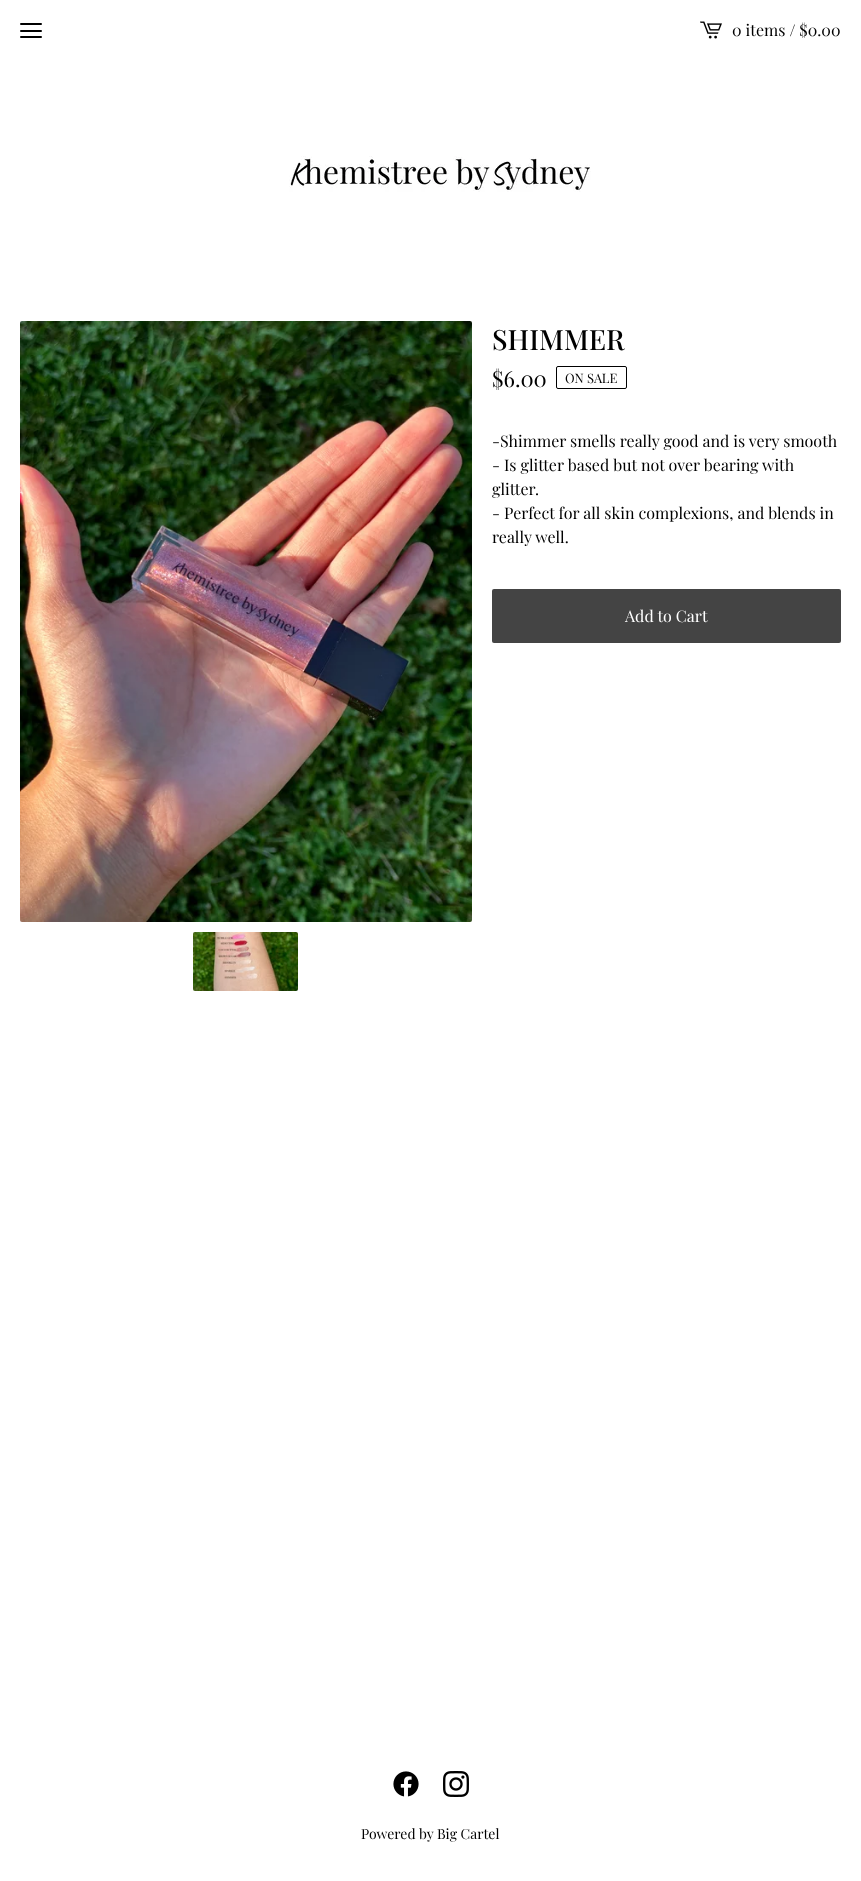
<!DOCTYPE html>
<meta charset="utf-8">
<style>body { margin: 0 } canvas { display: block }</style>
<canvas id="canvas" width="861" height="1881"></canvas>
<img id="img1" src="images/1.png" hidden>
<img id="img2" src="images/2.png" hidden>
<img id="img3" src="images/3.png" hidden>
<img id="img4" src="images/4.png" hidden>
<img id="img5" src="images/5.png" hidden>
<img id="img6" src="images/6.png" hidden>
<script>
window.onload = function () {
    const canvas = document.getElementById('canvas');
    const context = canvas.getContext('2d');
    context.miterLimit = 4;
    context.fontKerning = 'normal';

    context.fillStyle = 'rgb(255, 255, 255)';
    context.fillRect(0, 0, 861, 1881);
    context.fillStyle = 'rgb(0, 0, 0)';
    context.beginPath();
    context.roundRect(20, 23, 22, 2, 1);
    context.fill();
    context.beginPath();
    context.roundRect(20, 30, 22, 2, 1);
    context.fill();
    context.beginPath();
    context.roundRect(20, 36, 22, 2, 1);
    context.fill();
    context.drawImage(document.getElementById('img1'), 700, 21, 22, 18);
    context.drawImage(document.getElementById('img2'), 289, 156, 302, 36);
    context.drawImage(document.getElementById('img3'), 20, 321, 452, 601);
    context.drawImage(document.getElementById('img4'), 193, 932, 105, 59);
    context.beginPath();
    context.roundRect(556.5, 366.5, 70, 22, 1.5);
    context.strokeStyle = 'rgb(0, 0, 0)';
    context.stroke();
    context.fillStyle = 'rgb(68, 68, 68)';
    context.beginPath();
    context.roundRect(492, 589, 349, 54, 2);
    context.fill();
    context.drawImage(document.getElementById('img5'), 393, 1771, 26, 26);
    context.drawImage(document.getElementById('img6'), 443, 1771, 26, 26);
    context.font = '16px Playfair Display';
    context.fillStyle = 'rgb(0, 0, 0)';
    context.fillText('0 items / $0.00', 732, 36);
    context.font = '500 28px Playfair Display';
    context.fillText('SHIMMER', 492, 350);
    context.font = '22px Playfair Display';
    context.fillText('$6.00', 492, 387);
    context.font = '13px Playfair Display';
    context.fillText('ON SALE', 565, 383);
    context.font = '16px Playfair Display';
    context.fillText('-Shimmer smells really good and is very smooth', 492, 447);
    context.fillText('- Is glitter based but not over bearing with', 492, 471);
    context.fillText('glitter.', 492, 495);
    context.fillText('- Perfect for all skin complexions, and blends in', 492, 519);
    context.fillText('really well.', 492, 543);
    context.fillStyle = 'rgb(255, 255, 255)';
    context.fillText('Add to Cart', 625, 622);
    context.font = '14px Playfair Display';
    context.fillStyle = 'rgb(0, 0, 0)';
    context.fillText('Powered by Big Cartel', 361, 1839);
};
</script>
